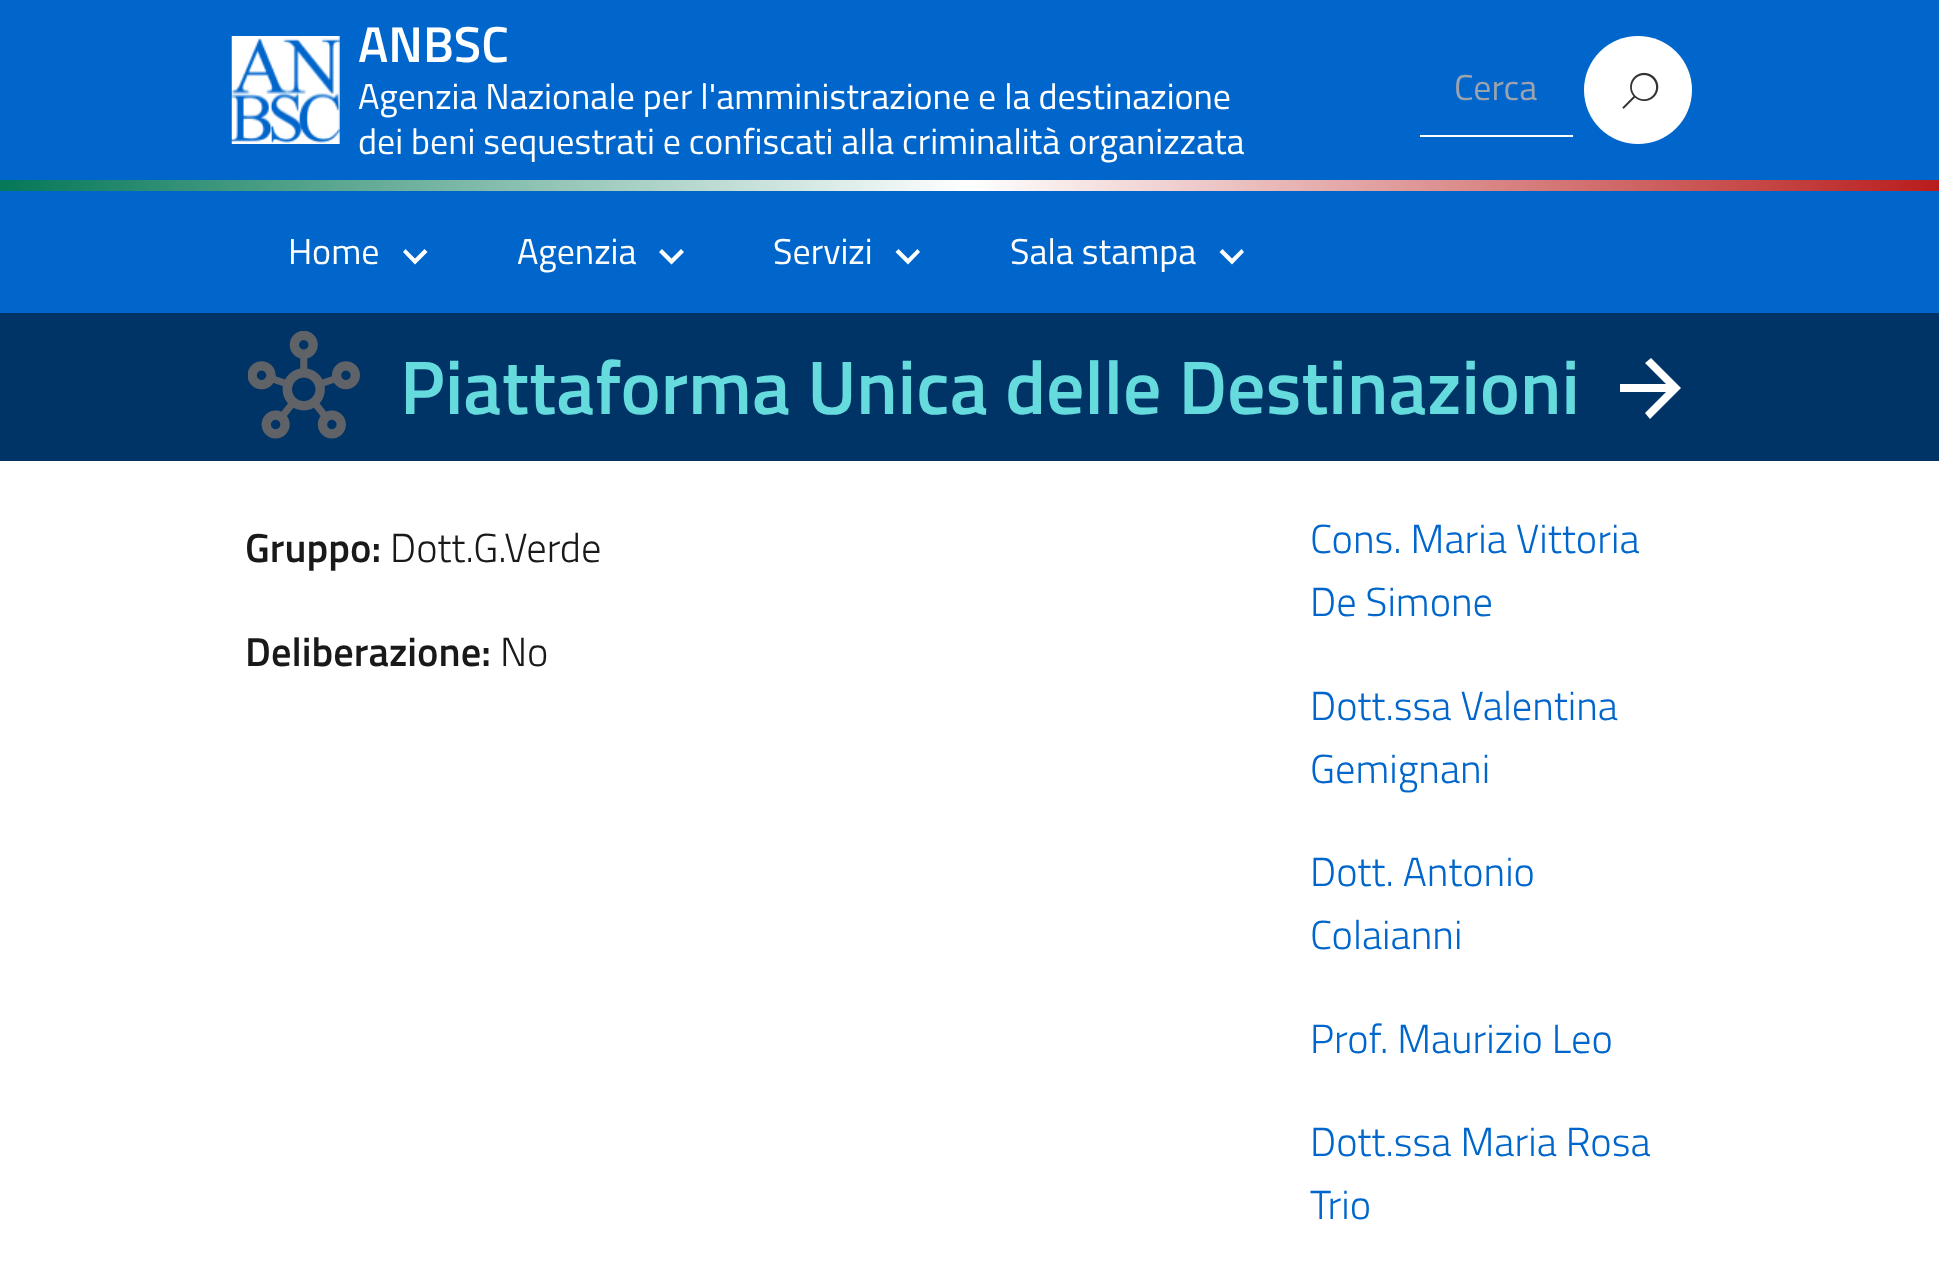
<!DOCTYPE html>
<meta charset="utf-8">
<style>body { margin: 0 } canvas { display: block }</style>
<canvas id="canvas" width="1939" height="1262"></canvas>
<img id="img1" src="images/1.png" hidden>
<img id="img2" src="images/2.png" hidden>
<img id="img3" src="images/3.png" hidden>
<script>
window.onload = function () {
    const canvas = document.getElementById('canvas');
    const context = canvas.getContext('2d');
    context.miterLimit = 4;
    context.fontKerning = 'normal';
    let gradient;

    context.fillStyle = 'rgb(255, 255, 255)';
    context.fillRect(0, 0, 1939, 1262);
    context.fillStyle = 'rgb(0, 102, 204)';
    context.fillRect(0, 0, 1939, 180);
    context.drawImage(document.getElementById('img1'), 231, 36, 109, 108);
    context.fillStyle = 'rgb(255, 255, 255)';
    context.fillRect(1420, 135, 153, 2);
    context.beginPath();
    context.arc(1638, 90, 54, 0, 2 * Math.PI);
    context.fill();
    context.drawImage(document.getElementById('img2'), 1622, 72, 37, 37);
    gradient = context.createLinearGradient(0, 186, 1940, 186);
    gradient.addColorStop(0, 'rgb(4, 120, 87)');
    gradient.addColorStop(0.5, 'rgb(255, 255, 255)');
    gradient.addColorStop(1, 'rgb(185, 28, 28)');
    context.fillStyle = gradient;
    context.fillRect(0, 180, 1939, 11);
    context.fillStyle = 'rgb(0, 102, 204)';
    context.fillRect(0, 191, 1939, 122);
    context.fillStyle = 'rgb(255, 255, 255)';
    context.beginPath();
    context.moveTo(405.5, 249);
    context.lineTo(403, 252);
    context.lineTo(415, 264.5);
    context.lineTo(427.5, 252);
    context.lineTo(424.5, 249);
    context.lineTo(415, 258.5);
    context.closePath();
    context.fill();
    context.beginPath();
    context.moveTo(662, 249);
    context.lineTo(659, 252);
    context.lineTo(671.5, 264.5);
    context.lineTo(684, 252);
    context.lineTo(681, 249);
    context.lineTo(671.5, 258.5);
    context.closePath();
    context.fill();
    context.beginPath();
    context.moveTo(898.5, 249);
    context.lineTo(895.5, 252);
    context.lineTo(908, 264.5);
    context.lineTo(920, 252);
    context.lineTo(917.5, 249);
    context.lineTo(908, 258.5);
    context.closePath();
    context.fill();
    context.beginPath();
    context.moveTo(1222.5, 249);
    context.lineTo(1219.5, 252);
    context.lineTo(1232, 264.5);
    context.lineTo(1244, 252);
    context.lineTo(1241.5, 249);
    context.lineTo(1232, 258.5);
    context.closePath();
    context.fill();
    context.fillStyle = 'rgb(0, 51, 102)';
    context.fillRect(0, 313, 1939, 148);
    context.drawImage(document.getElementById('img3'), 248, 331, 112, 108);
    context.fillStyle = 'rgb(255, 255, 255)';
    context.beginPath();
    context.moveTo(1620, 392);
    context.lineTo(1666, 392);
    context.lineTo(1645, 413);
    context.lineTo(1650, 419);
    context.lineTo(1681, 388);
    context.lineTo(1651, 358);
    context.lineTo(1645, 363);
    context.lineTo(1666, 384);
    context.lineTo(1620, 384);
    context.closePath();
    context.fill();
    context.font = '600 50.5px Titillium Web';
    context.fillText('ANBSC', 358, 62);
    context.font = '36px Titillium Web';
    context.fillText('Agenzia Nazionale per l\'amministrazione e la destinazione', 358, 109);
    context.fillText('dei beni sequestrati e confiscati alla criminalità organizzata', 358, 154);
    context.fillStyle = 'rgb(156, 163, 175)';
    context.fillText('Cerca', 1454, 100);
    context.fillStyle = 'rgb(255, 255, 255)';
    context.fillText('Home', 288, 264);
    context.fillText('Agenzia', 517, 264);
    context.fillText('Servizi', 773, 264);
    context.fillText('Sala stampa', 1010, 264);
    context.font = '600 76px Titillium Web';
    context.fillStyle = 'rgb(101, 219, 222)';
    context.fillText('Piattaforma Unica delle Destinazioni', 400, 414);
    context.font = '600 40.5px Titillium Web';
    context.fillStyle = 'rgb(25, 25, 26)';
    context.fillText('Gruppo:', 245, 562);
    context.font = '300 40.5px Titillium Web';
    context.fillText('Dott.G.Verde', 390, 562);
    context.font = '600 40.5px Titillium Web';
    context.fillText('Deliberazione:', 245, 666);
    context.font = '300 40.5px Titillium Web';
    context.fillText('No', 500, 666);
    context.fillStyle = 'rgb(0, 102, 204)';
    context.fillText('Cons. Maria Vittoria', 1310, 553);
    context.fillText('De Simone', 1310, 616);
    context.fillText('Dott.ssa Valentina', 1310, 720);
    context.fillText('Gemignani', 1310, 783);
    context.fillText('Dott. Antonio', 1310, 886);
    context.fillText('Colaianni', 1310, 949);
    context.fillText('Prof. Maurizio Leo', 1310, 1053);
    context.fillText('Dott.ssa Maria Rosa', 1310, 1156);
    context.fillText('Trio', 1310, 1219);
};
</script>
